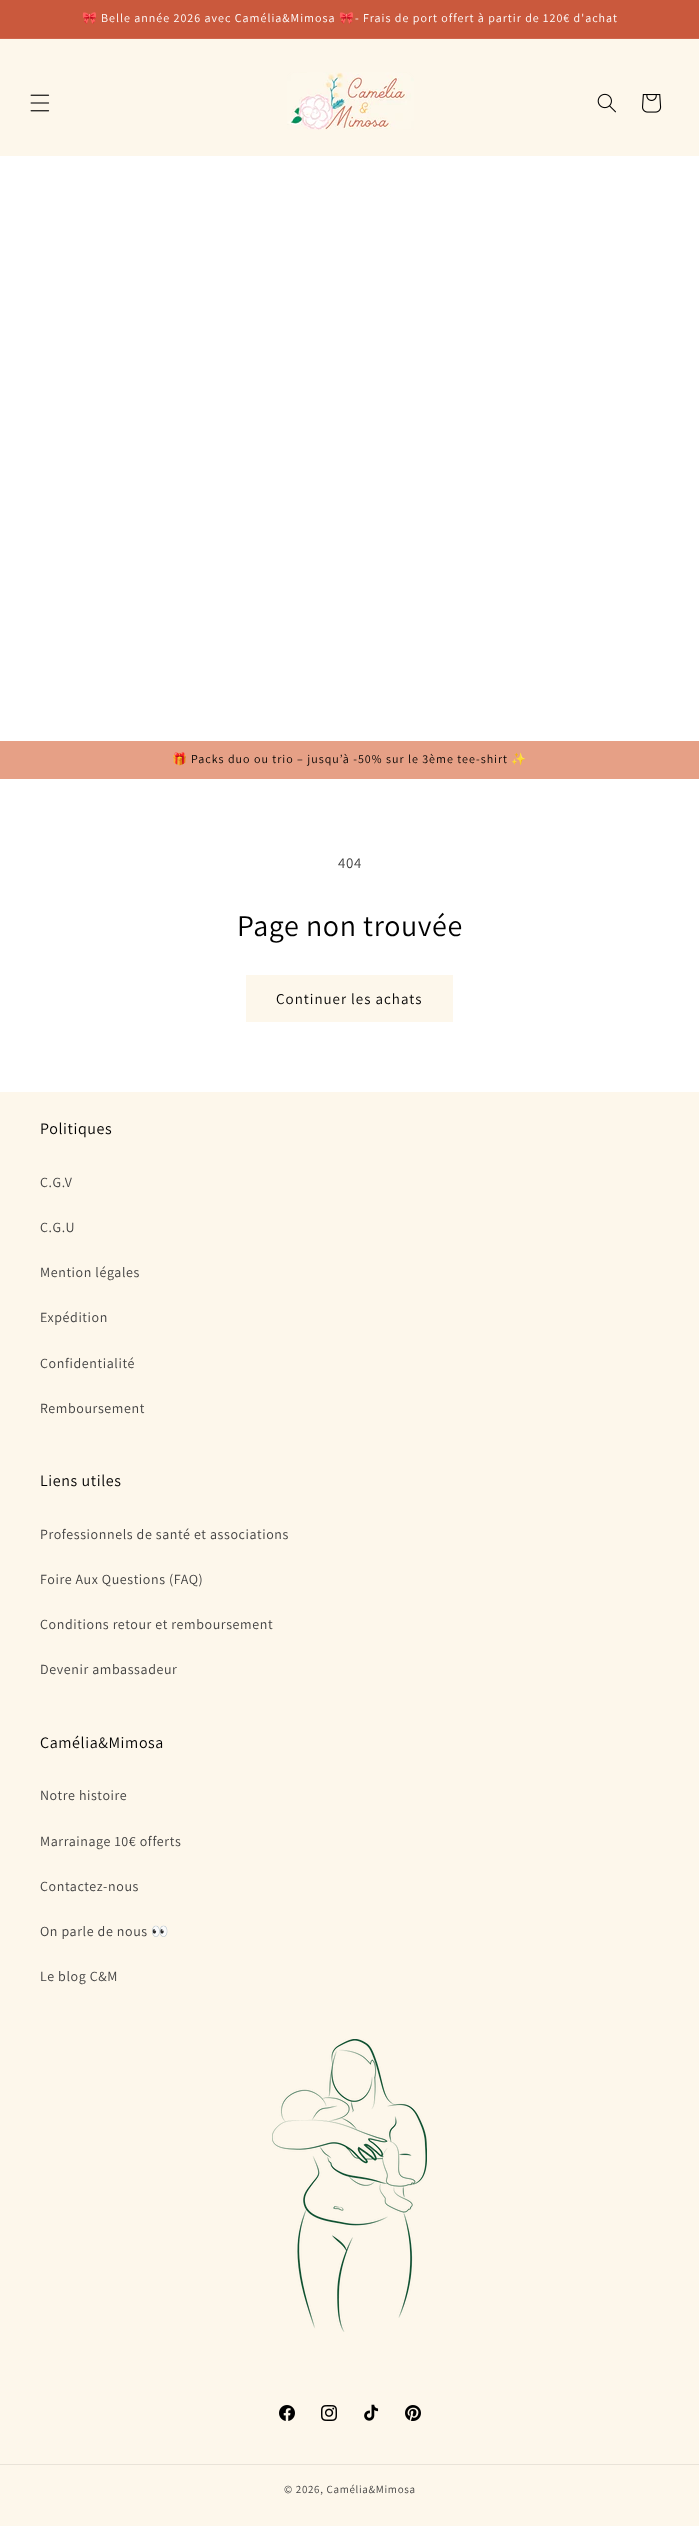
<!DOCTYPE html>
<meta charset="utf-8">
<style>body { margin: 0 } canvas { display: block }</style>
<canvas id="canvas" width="699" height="2526"></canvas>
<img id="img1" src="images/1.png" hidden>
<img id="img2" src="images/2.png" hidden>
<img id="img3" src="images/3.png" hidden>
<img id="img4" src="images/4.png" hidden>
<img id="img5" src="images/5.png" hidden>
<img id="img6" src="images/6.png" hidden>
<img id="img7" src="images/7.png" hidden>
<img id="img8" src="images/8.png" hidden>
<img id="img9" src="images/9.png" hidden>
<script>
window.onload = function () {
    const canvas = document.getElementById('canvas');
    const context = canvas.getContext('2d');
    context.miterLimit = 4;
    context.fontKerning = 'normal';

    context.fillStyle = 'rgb(255, 255, 255)';
    context.fillRect(0, 0, 699, 2526);
    context.fillStyle = 'rgb(202, 89, 61)';
    context.fillRect(0, 0, 699, 38);
    context.fillStyle = 'rgb(206, 102, 77)';
    context.fillRect(0, 38, 699, 1);
    context.fillStyle = 'rgb(253, 247, 235)';
    context.fillRect(0, 39, 699, 117);
    context.drawImage(document.getElementById('img1'), 30, 94, 20, 18);
    context.drawImage(document.getElementById('img2'), 287, 72, 127, 58);
    context.drawImage(document.getElementById('img3'), 597, 93, 19, 20);
    context.drawImage(document.getElementById('img4'), 642, 94, 20, 19);
    context.fillStyle = 'rgb(230, 160, 134)';
    context.fillRect(0, 741, 699, 38);
    context.fillStyle = 'rgb(253, 247, 235)';
    context.fillRect(246, 975, 207, 47);
    context.fillRect(0, 1092, 699, 1434);
    context.drawImage(document.getElementById('img5'), 272, 2039, 155, 293);
    context.drawImage(document.getElementById('img6'), 279, 2405, 16, 16);
    context.drawImage(document.getElementById('img7'), 321, 2405, 16, 16);
    context.drawImage(document.getElementById('img8'), 364, 2404, 15, 17);
    context.drawImage(document.getElementById('img9'), 405, 2405, 16, 16);
    context.fillStyle = 'rgb(233, 227, 216)';
    context.fillRect(0, 2464, 699, 1);
    context.letterSpacing = '1px';
    context.font = '12px Noto Color Emoji';
    context.fillStyle = 'rgb(255, 255, 255)';
    context.fillText('🎀', 82, 22);
    context.font = '12px Assistant';
    context.fillText('Belle année 2026 avec Camélia&Mimosa', 101, 22);
    context.font = '12px Noto Color Emoji';
    context.fillText('🎀', 339, 22);
    context.font = '12px Assistant';
    context.fillText('- Frais de port offert à partir de 120€ d\'achat', 355, 22);
    context.font = '12px Noto Color Emoji';
    context.fillStyle = 'rgb(0, 0, 0)';
    context.fillText('🎁', 172, 763);
    context.font = '12px Assistant';
    context.fillText('Packs duo ou trio – jusqu’à -50% sur le 3ème tee-shirt', 191, 763);
    context.font = '12px Noto Color Emoji';
    context.fillText('✨', 511, 763);
    context.letterSpacing = '0.6px';
    context.font = '15px Assistant';
    context.fillStyle = 'rgb(64, 64, 64)';
    context.fillText('404', 338, 868);
    context.font = '30px Assistant';
    context.fillStyle = 'rgb(0, 0, 0)';
    context.fillText('Page non trouvée', 237, 936);
    context.letterSpacing = '1px';
    context.font = '15px Assistant';
    context.fillText('Continuer les achats', 276, 1004);
    context.letterSpacing = '0.6px';
    context.font = '16px Assistant';
    context.fillText('Politiques', 40, 1134);
    context.font = '14px Assistant';
    context.fillStyle = 'rgb(64, 64, 64)';
    context.fillText('C.G.V', 40, 1187);
    context.fillText('C.G.U', 40, 1232);
    context.fillText('Mention légales', 40, 1277);
    context.fillText('Expédition', 40, 1322);
    context.fillText('Confidentialité', 40, 1368);
    context.fillText('Remboursement', 40, 1413);
    context.font = '16px Assistant';
    context.fillStyle = 'rgb(0, 0, 0)';
    context.fillText('Liens utiles', 40, 1486);
    context.font = '14px Assistant';
    context.fillStyle = 'rgb(64, 64, 64)';
    context.fillText('Professionnels de santé et associations', 40, 1539);
    context.fillText('Foire Aux Questions (FAQ)', 40, 1584);
    context.fillText('Conditions retour et remboursement', 40, 1629);
    context.fillText('Devenir ambassadeur', 40, 1674);
    context.font = '16px Assistant';
    context.fillStyle = 'rgb(0, 0, 0)';
    context.fillText('Camélia&Mimosa', 40, 1748);
    context.font = '14px Assistant';
    context.fillStyle = 'rgb(64, 64, 64)';
    context.fillText('Notre histoire', 40, 1800);
    context.fillText('Marrainage 10€ offerts', 40, 1846);
    context.fillText('Contactez-nous', 40, 1891);
    context.fillText('On parle de nous', 40, 1936);
    context.font = '14px Noto Color Emoji';
    context.fillText('👀', 151, 1936);
    context.font = '14px Assistant';
    context.fillText('Le blog C&M', 40, 1981);
    context.letterSpacing = '0.7px';
    context.font = '11px Assistant';
    context.fillText('© 2026, Camélia&Mimosa', 284, 2493);
};
</script>
